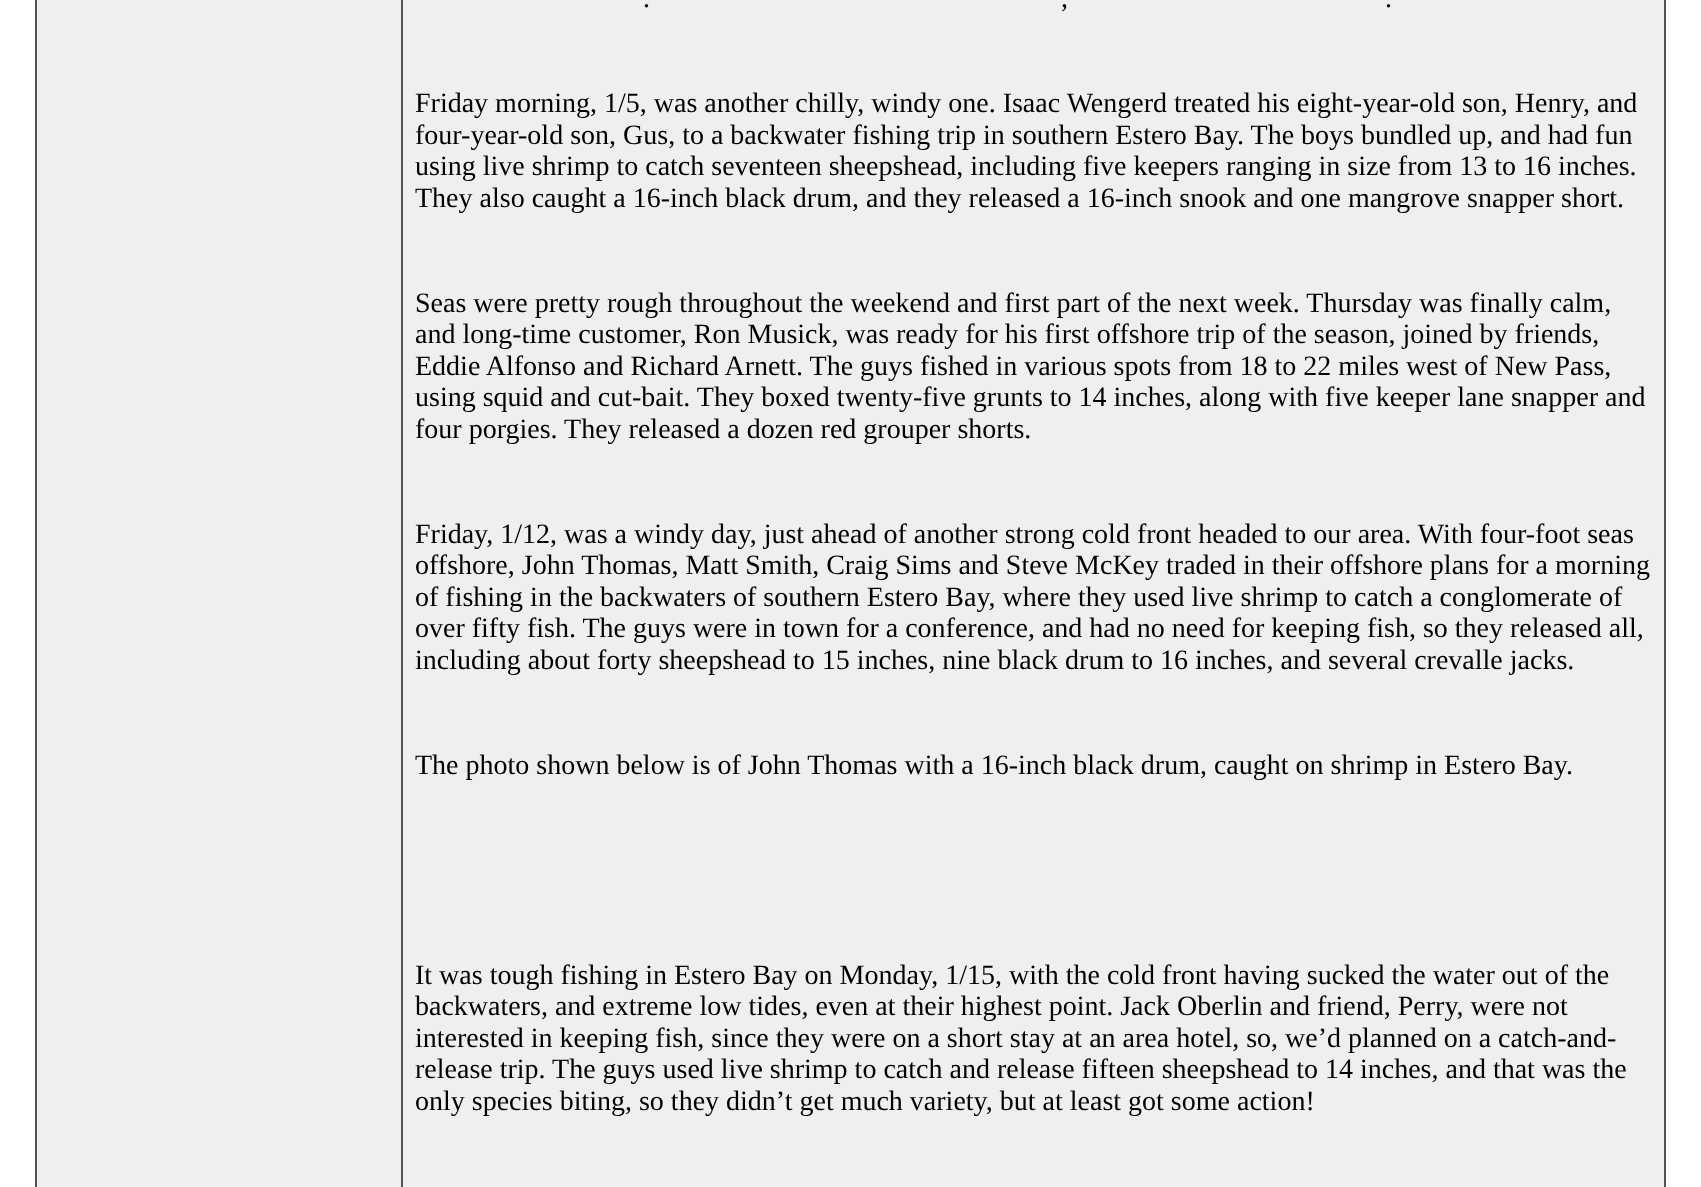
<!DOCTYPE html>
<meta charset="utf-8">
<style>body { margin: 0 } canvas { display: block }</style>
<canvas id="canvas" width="1701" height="1187"></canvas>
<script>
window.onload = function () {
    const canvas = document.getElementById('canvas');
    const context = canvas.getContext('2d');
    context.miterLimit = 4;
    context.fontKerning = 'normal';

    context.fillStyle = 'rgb(255, 255, 255)';
    context.fillRect(0, 0, 1701, 1187);
    context.fillStyle = 'rgb(86, 80, 81)';
    context.fillRect(1664, 0, 2, 1187);
    context.fillRect(35, 0, 2, 1187);
    context.fillStyle = 'rgb(239, 239, 239)';
    context.fillRect(37, 0, 364, 1187);
    context.fillRect(403, 0, 1261, 1187);
    context.fillStyle = 'rgb(86, 80, 81)';
    context.fillRect(401, 0, 2, 1187);
    context.font = '28px Liberation Serif';
    context.fillStyle = 'rgb(0, 0, 0)';
    context.fillText('.', 643, 7);
    context.fillText(',', 1061, 7);
    context.fillText('.', 1385, 7);
    context.fillText('Friday morning, 1/5, was another chilly, windy one. Isaac Wengerd treated his eight-year-old son, Henry, and', 415, 112);
    context.fillText('four-year-old son, Gus, to a backwater fishing trip in southern Estero Bay. The boys bundled up, and had fun', 415, 144);
    context.fillText('using live shrimp to catch seventeen sheepshead, including five keepers ranging in size from 13 to 16 inches.', 415, 175);
    context.fillText('They also caught a 16-inch black drum, and they released a 16-inch snook and one mangrove snapper short.', 415, 207);
    context.fillText('Seas were pretty rough throughout the weekend and first part of the next week. Thursday was finally calm,', 415, 312);
    context.fillText('and long-time customer, Ron Musick, was ready for his first offshore trip of the season, joined by friends,', 415, 343);
    context.fillText('Eddie Alfonso and Richard Arnett. The guys fished in various spots from 18 to 22 miles west of New Pass,', 415, 375);
    context.fillText('using squid and cut-bait. They boxed twenty-five grunts to 14 inches, along with five keeper lane snapper and', 415, 406);
    context.fillText('four porgies. They released a dozen red grouper shorts.', 415, 438);
    context.fillText('Friday, 1/12, was a windy day, just ahead of another strong cold front headed to our area. With four-foot seas', 415, 543);
    context.fillText('offshore, John Thomas, Matt Smith, Craig Sims and Steve McKey traded in their offshore plans for a morning', 415, 574);
    context.fillText('of fishing in the backwaters of southern Estero Bay, where they used live shrimp to catch a conglomerate of', 415, 606);
    context.fillText('over fifty fish. The guys were in town for a conference, and had no need for keeping fish, so they released all,', 415, 637);
    context.fillText('including about forty sheepshead to 15 inches, nine black drum to 16 inches, and several crevalle jacks.', 415, 669);
    context.fillText('The photo shown below is of John Thomas with a 16-inch black drum, caught on shrimp in Estero Bay.', 415, 774);
    context.fillText('It was tough fishing in Estero Bay on Monday, 1/15, with the cold front having sucked the water out of the', 415, 984);
    context.fillText('backwaters, and extreme low tides, even at their highest point. Jack Oberlin and friend, Perry, were not', 415, 1015);
    context.fillText('interested in keeping fish, since they were on a short stay at an area hotel, so, we’d planned on a catch-and-', 415, 1047);
    context.fillText('release trip. The guys used live shrimp to catch and release fifteen sheepshead to 14 inches, and that was the', 415, 1078);
    context.fillText('only species biting, so they didn’t get much variety, but at least got some action!', 415, 1110);
};
</script>
